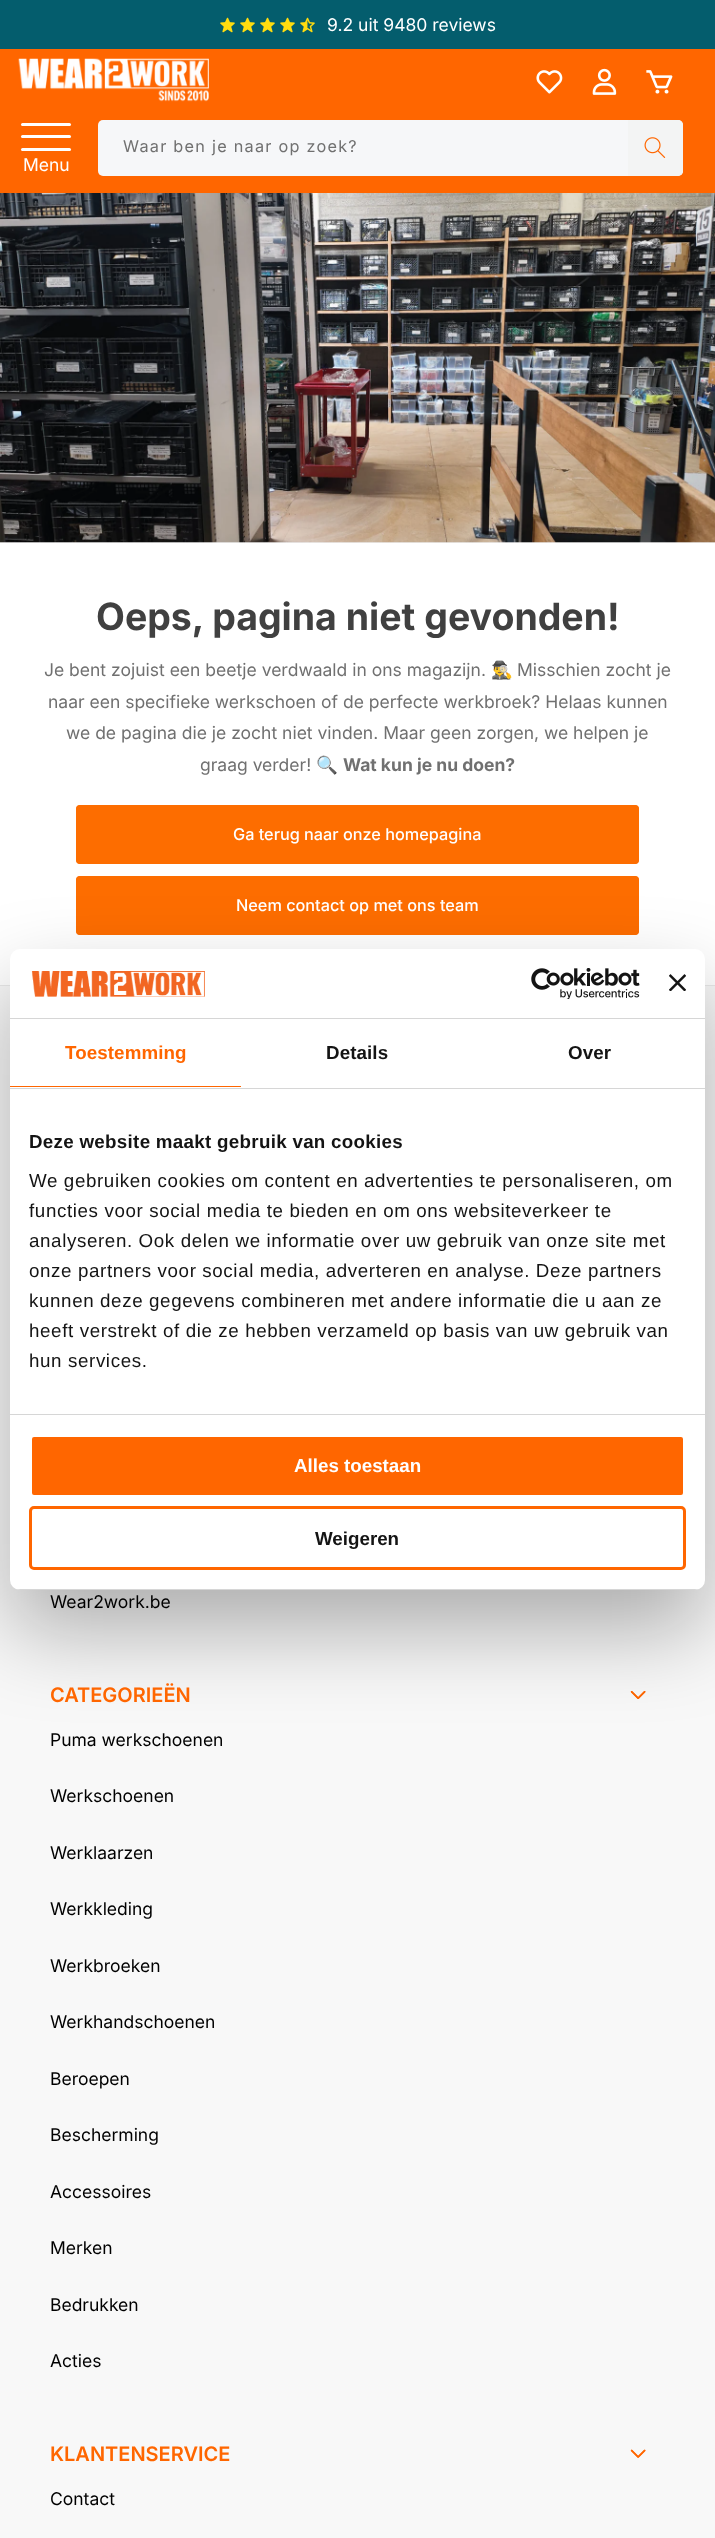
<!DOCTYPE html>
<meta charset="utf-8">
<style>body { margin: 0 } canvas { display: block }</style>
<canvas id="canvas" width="715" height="2538"></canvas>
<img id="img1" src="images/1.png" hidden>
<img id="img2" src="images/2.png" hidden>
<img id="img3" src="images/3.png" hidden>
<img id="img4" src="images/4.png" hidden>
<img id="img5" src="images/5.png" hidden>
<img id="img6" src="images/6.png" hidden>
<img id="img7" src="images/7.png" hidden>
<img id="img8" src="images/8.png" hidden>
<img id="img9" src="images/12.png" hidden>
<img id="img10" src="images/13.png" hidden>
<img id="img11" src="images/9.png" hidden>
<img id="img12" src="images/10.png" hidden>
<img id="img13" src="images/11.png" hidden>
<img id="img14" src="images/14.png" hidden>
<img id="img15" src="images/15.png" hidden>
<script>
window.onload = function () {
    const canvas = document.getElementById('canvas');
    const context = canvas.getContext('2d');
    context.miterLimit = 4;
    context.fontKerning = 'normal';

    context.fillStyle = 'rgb(255, 255, 255)';
    context.fillRect(0, 0, 715, 2538);
    context.fillStyle = 'rgb(4, 93, 109)';
    context.fillRect(0, 0, 715, 49);
    context.drawImage(document.getElementById('img1'), 220, 17, 15, 16);
    context.drawImage(document.getElementById('img1'), 240, 17, 15, 16);
    context.drawImage(document.getElementById('img1'), 260, 17, 15, 16);
    context.drawImage(document.getElementById('img1'), 280, 17, 15, 16);
    context.drawImage(document.getElementById('img2'), 300, 17, 15, 16);
    context.fillStyle = 'rgb(255, 102, 0)';
    context.fillRect(0, 49, 715, 144);
    context.drawImage(document.getElementById('img3'), 18, 58, 191, 44);
    context.drawImage(document.getElementById('img4'), 536, 70, 27, 24);
    context.drawImage(document.getElementById('img5'), 592, 68, 25, 27);
    context.drawImage(document.getElementById('img6'), 646, 70, 27, 24);
    context.fillStyle = 'rgb(246, 247, 249)';
    context.beginPath();
    context.roundRect(98, 120, 585, 56, 5);
    context.fill();
    context.fillStyle = 'rgb(243, 244, 244)';
    context.beginPath();
    context.roundRect(628, 120, 55, 56, [0, 5, 5, 0]);
    context.fill();
    context.drawImage(document.getElementById('img7'), 644, 137, 22, 21);
    context.fillStyle = 'rgb(255, 255, 255)';
    context.beginPath();
    context.roundRect(21, 135, 50, 3, 1.5);
    context.fill();
    context.beginPath();
    context.roundRect(21, 123, 50, 3, 1.5);
    context.fill();
    context.beginPath();
    context.roundRect(21, 148, 50, 3, 1.5);
    context.fill();
    context.fillStyle = 'rgb(237, 237, 237)';
    context.fillRect(0, 542, 715, 1);
    context.drawImage(document.getElementById('img8'), 0, 193, 715, 350);
    context.fillStyle = 'rgb(253, 109, 0)';
    context.beginPath();
    context.roundRect(76, 805, 563, 59, 4);
    context.fill();
    context.beginPath();
    context.roundRect(76.5, 805.5, 562, 58, 3.5);
    context.strokeStyle = 'rgb(253, 109, 0)';
    context.stroke();
    context.beginPath();
    context.roundRect(76, 876, 563, 59, 4);
    context.fill();
    context.beginPath();
    context.roundRect(76.5, 876.5, 562, 58, 3.5);
    context.stroke();
    context.fillStyle = 'rgb(248, 248, 248)';
    context.fillRect(0, 986, 715, 1552);
    context.fillStyle = 'rgb(233, 233, 233)';
    context.fillRect(0, 985, 715, 1);
    context.drawImage(document.getElementById('img9'), 630, 1691, 16, 8);
    context.drawImage(document.getElementById('img10'), 630, 1691, 16, 8);
    context.fillStyle = 'rgba(0, 0, 0, 0.3)';
    context.filter = 'blur(42.5px)';
    context.beginPath();
    context.roundRect(10, 989, 695, 641, 10);
    context.fill();
    context.filter = 'none';
    context.fillStyle = 'rgb(255, 255, 255)';
    context.beginPath();
    context.roundRect(10, 949, 695, 641, 10);
    context.fill();
    context.fillStyle = 'rgb(214, 214, 214)';
    context.fillRect(10, 1018, 695, 1);
    context.drawImage(document.getElementById('img11'), 31, 971, 174, 26);
    context.drawImage(document.getElementById('img12'), 531, 968, 109, 31);
    context.drawImage(document.getElementById('img13'), 669, 974, 17, 17);
    context.fillRect(10, 1088, 695, 1);
    context.fillStyle = 'rgb(255, 102, 0)';
    context.fillRect(10, 1086, 231, 1);
    context.fillStyle = 'rgb(214, 214, 214)';
    context.fillRect(10, 1414, 695, 1);
    context.save();
    context.beginPath();
    context.roundRect(10, 949, 695, 641, 10);
    context.clip();
    context.fillRect(10, 1589, 695, 1);
    context.restore();
    context.fillStyle = 'rgb(255, 102, 0)';
    context.beginPath();
    context.roundRect(30.5, 1435.5, 654, 61, 3.5);
    context.fill();
    context.strokeStyle = 'rgb(255, 255, 255)';
    context.lineWidth = 3;
    context.stroke();
    context.beginPath();
    context.roundRect(30.5, 1507.5, 654, 61, 3.5);
    context.strokeStyle = 'rgb(255, 102, 0)';
    context.stroke();
    context.drawImage(document.getElementById('img14'), 630, 2449, 16, 9);
    context.drawImage(document.getElementById('img15'), 630, 2449, 16, 9);
    context.font = '17.5px Inter';
    context.fillStyle = 'rgb(255, 255, 255)';
    context.fillText('9.2 uit 9480 reviews', 327, 31);
    context.letterSpacing = '1.25px';
    context.font = '16.25px Inter';
    context.fillStyle = 'rgb(112, 112, 112)';
    context.fillText('Waar ben je naar op zoek?', 123, 152);
    context.letterSpacing = '0px';
    context.font = '17.5px Inter';
    context.fillStyle = 'rgb(255, 255, 255)';
    context.fillText('Menu', 23, 171);
    context.font = 'bold 37.5px Inter';
    context.fillStyle = 'rgb(64, 64, 64)';
    context.fillText('Oeps, pagina niet gevonden!', 96, 630);
    context.font = '17.5px Inter';
    context.fillStyle = 'rgb(112, 112, 112)';
    context.fillText('Je bent zojuist een beetje verdwaald in ons magazijn.', 44, 676);
    context.font = '17.5px Noto Color Emoji';
    context.fillText('🕵️‍♂️', 491, 676);
    context.font = '17.5px Inter';
    context.fillText('Misschien zocht je', 517, 676);
    context.fillText('naar een specifieke werkschoen of de perfecte werkbroek? Helaas kunnen', 48, 708);
    context.fillText('we de pagina die je zocht niet vinden. Maar geen zorgen, we helpen je', 66, 739);
    context.fillText('graag verder!', 200, 771);
    context.font = '17.5px Noto Color Emoji';
    context.fillText('🔍', 316, 771);
    context.font = 'bold 17.5px Inter';
    context.fillText('Wat kun je nu doen?', 343, 771);
    context.font = '500 16.25px Inter';
    context.fillStyle = 'rgb(255, 255, 255)';
    context.fillText('Ga terug naar onze homepagina', 233, 840);
    context.fillText('Neem contact op met ons team', 236, 911);
    context.letterSpacing = '0.1px';
    context.font = 'bold 18.75px Liberation Sans';
    context.fillStyle = 'rgb(255, 102, 0)';
    context.fillText('Toestemming', 65, 1059);
    context.fillStyle = 'rgb(20, 20, 20)';
    context.fillText('Details', 326, 1059);
    context.fillText('Over', 568, 1059);
    context.letterSpacing = '0.3px';
    context.fillText('Deze website maakt gebruik van cookies', 29, 1148);
    context.letterSpacing = '0.62px';
    context.font = '18.75px Liberation Sans';
    context.fillText('We gebruiken cookies om content en advertenties te personaliseren, om', 29, 1187);
    context.fillText('functies voor social media te bieden en om ons websiteverkeer te', 29, 1217);
    context.fillText('analyseren. Ook delen we informatie over uw gebruik van onze site met', 29, 1247);
    context.fillText('onze partners voor social media, adverteren en analyse. Deze partners', 29, 1277);
    context.fillText('kunnen deze gegevens combineren met andere informatie die u aan ze', 29, 1307);
    context.fillText('heeft verstrekt of die ze hebben verzameld op basis van uw gebruik van', 29, 1337);
    context.fillText('hun services.', 29, 1367);
    context.letterSpacing = '0px';
    context.font = 'bold 18.75px Liberation Sans';
    context.fillStyle = 'rgb(255, 255, 255)';
    context.fillText('Alles toestaan', 294, 1472);
    context.fillStyle = 'rgb(20, 20, 20)';
    context.fillText('Weigeren', 315, 1545);
    context.font = '17.5px Inter';
    context.fillStyle = 'rgb(0, 0, 0)';
    context.fillText('Wear2work.be', 50, 1608);
    context.font = '600 20px Inter';
    context.fillStyle = 'rgb(255, 102, 0)';
    context.fillText('CATEGORIEËN', 50, 1702);
    context.font = '17.5px Inter';
    context.fillStyle = 'rgb(0, 0, 0)';
    context.fillText('Puma werkschoenen', 50, 1746);
    context.fillText('Werkschoenen', 50, 1802);
    context.fillText('Werklaarzen', 50, 1859);
    context.fillText('Werkkleding', 50, 1915);
    context.fillText('Werkbroeken', 50, 1972);
    context.fillText('Werkhandschoenen', 50, 2028);
    context.fillText('Beroepen', 50, 2085);
    context.fillText('Bescherming', 50, 2141);
    context.fillText('Accessoires', 50, 2198);
    context.fillText('Merken', 50, 2254);
    context.fillText('Bedrukken', 50, 2311);
    context.fillText('Acties', 50, 2367);
    context.font = '600 20px Inter';
    context.fillStyle = 'rgb(255, 102, 0)';
    context.fillText('KLANTENSERVICE', 50, 2461);
    context.font = '17.5px Inter';
    context.fillStyle = 'rgb(0, 0, 0)';
    context.fillText('Contact', 50, 2505);
};
</script>
